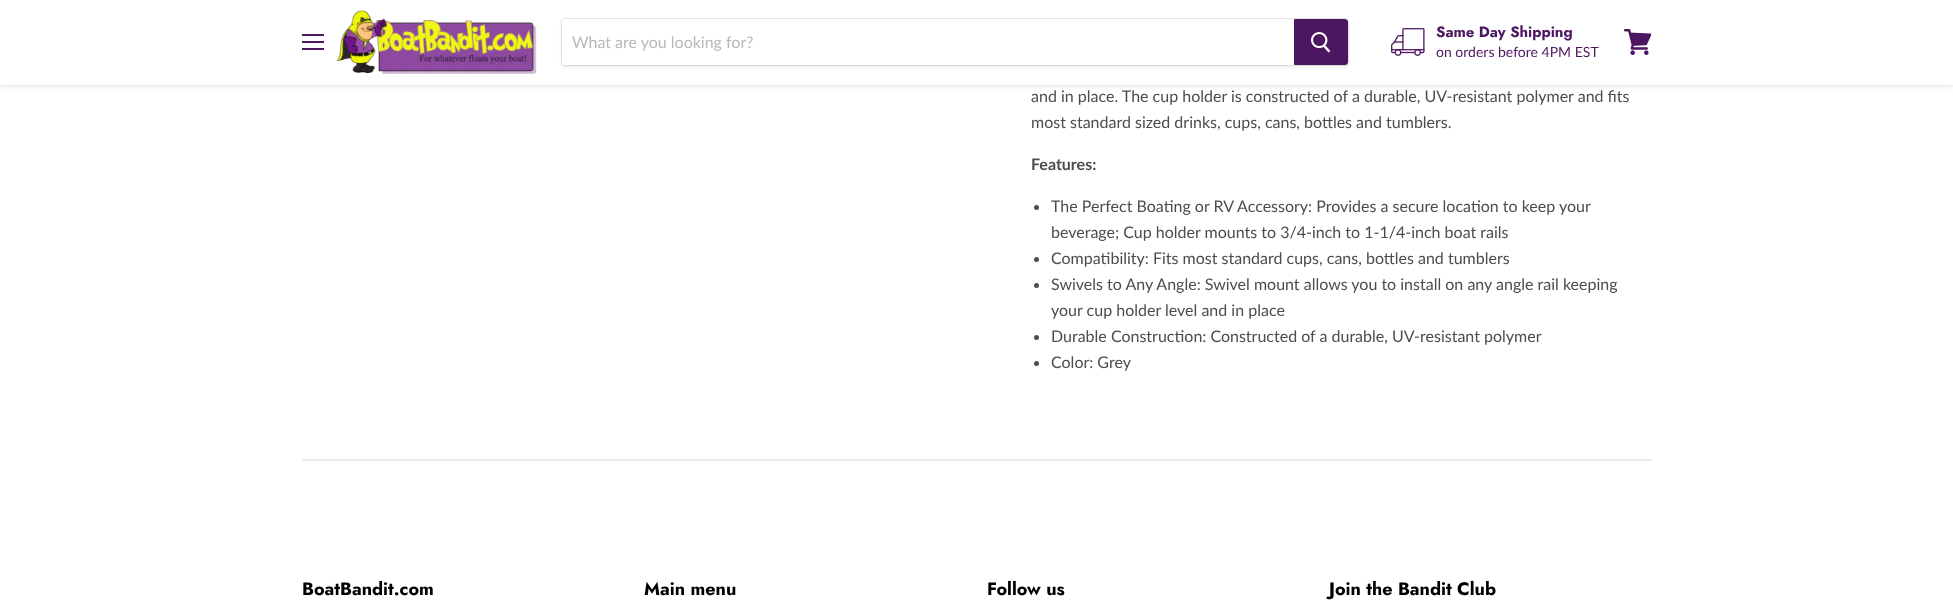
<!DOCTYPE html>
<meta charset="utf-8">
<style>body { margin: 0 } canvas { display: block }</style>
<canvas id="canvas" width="1953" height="609"></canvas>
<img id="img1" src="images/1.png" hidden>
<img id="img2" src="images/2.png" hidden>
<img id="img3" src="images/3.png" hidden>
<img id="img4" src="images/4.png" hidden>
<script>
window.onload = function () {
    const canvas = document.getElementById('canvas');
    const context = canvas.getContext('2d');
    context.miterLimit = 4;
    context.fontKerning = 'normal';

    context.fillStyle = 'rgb(255, 255, 255)';
    context.fillRect(0, 0, 1953, 609);
    context.fillStyle = 'rgba(128, 128, 128, 0.25)';
    context.filter = 'blur(2px)';
    context.beginPath();
    context.rect(0, 1, 1953, 85);
    context.fill();
    context.filter = 'none';
    context.fillStyle = 'rgb(255, 255, 255)';
    context.fillRect(0, 0, 1953, 85);
    context.fillStyle = 'rgb(77, 22, 96)';
    context.fillRect(302, 34, 22, 2);
    context.fillRect(302, 41, 22, 2);
    context.fillRect(302, 48, 22, 2);
    context.drawImage(document.getElementById('img1'), 336, 10, 201, 64);
    context.fillStyle = 'rgba(128, 128, 128, 0.11)';
    context.filter = 'blur(1.5px)';
    context.beginPath();
    context.roundRect(561, 20, 788, 48, 4);
    context.fill();
    context.filter = 'none';
    context.beginPath();
    context.roundRect(561.5, 18.5, 787, 47, 3.5);
    context.strokeStyle = 'rgba(128, 128, 128, 0.2)';
    context.stroke();
    context.fillStyle = 'rgb(255, 255, 255)';
    context.beginPath();
    context.roundRect(562, 19, 732, 46, [3, 0, 0, 3]);
    context.fill();
    context.fillStyle = 'rgb(77, 22, 96)';
    context.beginPath();
    context.roundRect(1294.5, 19.5, 53, 45, [0, 2.5, 2.5, 0]);
    context.fill();
    context.strokeStyle = 'rgb(77, 22, 96)';
    context.stroke();
    context.drawImage(document.getElementById('img2'), 1311, 32, 20, 21);
    context.drawImage(document.getElementById('img3'), 1391, 28, 34, 28);
    context.drawImage(document.getElementById('img4'), 1624, 29, 28, 26);
    context.fillStyle = 'rgb(77, 77, 77)';
    context.beginPath();
    context.arc(1036.5, 207.5, 2.5, 0, 2 * Math.PI);
    context.fill();
    context.beginPath();
    context.arc(1036.5, 259.5, 2.5, 0, 2 * Math.PI);
    context.fill();
    context.beginPath();
    context.arc(1036.5, 285.5, 2.5, 0, 2 * Math.PI);
    context.fill();
    context.beginPath();
    context.arc(1036.5, 337.5, 2.5, 0, 2 * Math.PI);
    context.fill();
    context.beginPath();
    context.arc(1036.5, 363.5, 2.5, 0, 2 * Math.PI);
    context.fill();
    context.fillStyle = 'rgb(235, 235, 235)';
    context.fillRect(302, 459, 1350, 2);
    context.font = '16px Lato';
    context.fillStyle = 'rgb(184, 184, 184)';
    context.fillText('What are you looking for?', 572, 48);
    context.font = 'bold 15px Jost';
    context.fillStyle = 'rgb(77, 22, 96)';
    context.fillText('Same Day Shipping', 1436, 37);
    context.font = '14px Lato';
    context.fillText('on orders before 4PM EST', 1436, 57);
    context.font = '16px Lato';
    context.fillStyle = 'rgb(77, 77, 77)';
    context.fillText('and in place. The cup holder is constructed of a durable, UV-resistant polymer and fits', 1031, 102);
    context.fillText('most standard sized drinks, cups, cans, bottles and tumblers.', 1031, 128);
    context.font = 'bold 16px Lato';
    context.fillText('Features:', 1031, 170);
    context.font = '16px Lato';
    context.fillText('The Perfect Boating or RV Accessory: Provides a secure location to keep your', 1051, 212);
    context.fillText('beverage; Cup holder mounts to 3/4-inch to 1-1/4-inch boat rails', 1051, 238);
    context.fillText('Compatibility: Fits most standard cups, cans, bottles and tumblers', 1051, 264);
    context.fillText('Swivels to Any Angle: Swivel mount allows you to install on any angle rail keeping', 1051, 290);
    context.fillText('your cup holder level and in place', 1051, 316);
    context.fillText('Durable Construction: Constructed of a durable, UV-resistant polymer', 1051, 342);
    context.fillText('Color: Grey', 1051, 368);
    context.font = 'bold 18px Jost';
    context.fillStyle = 'rgb(0, 0, 0)';
    context.fillText('BoatBandit.com', 302, 595);
    context.fillText('Main menu', 644, 595);
    context.fillText('Follow us', 987, 595);
    context.fillText('Join the Bandit Club', 1329, 595);
};
</script>
